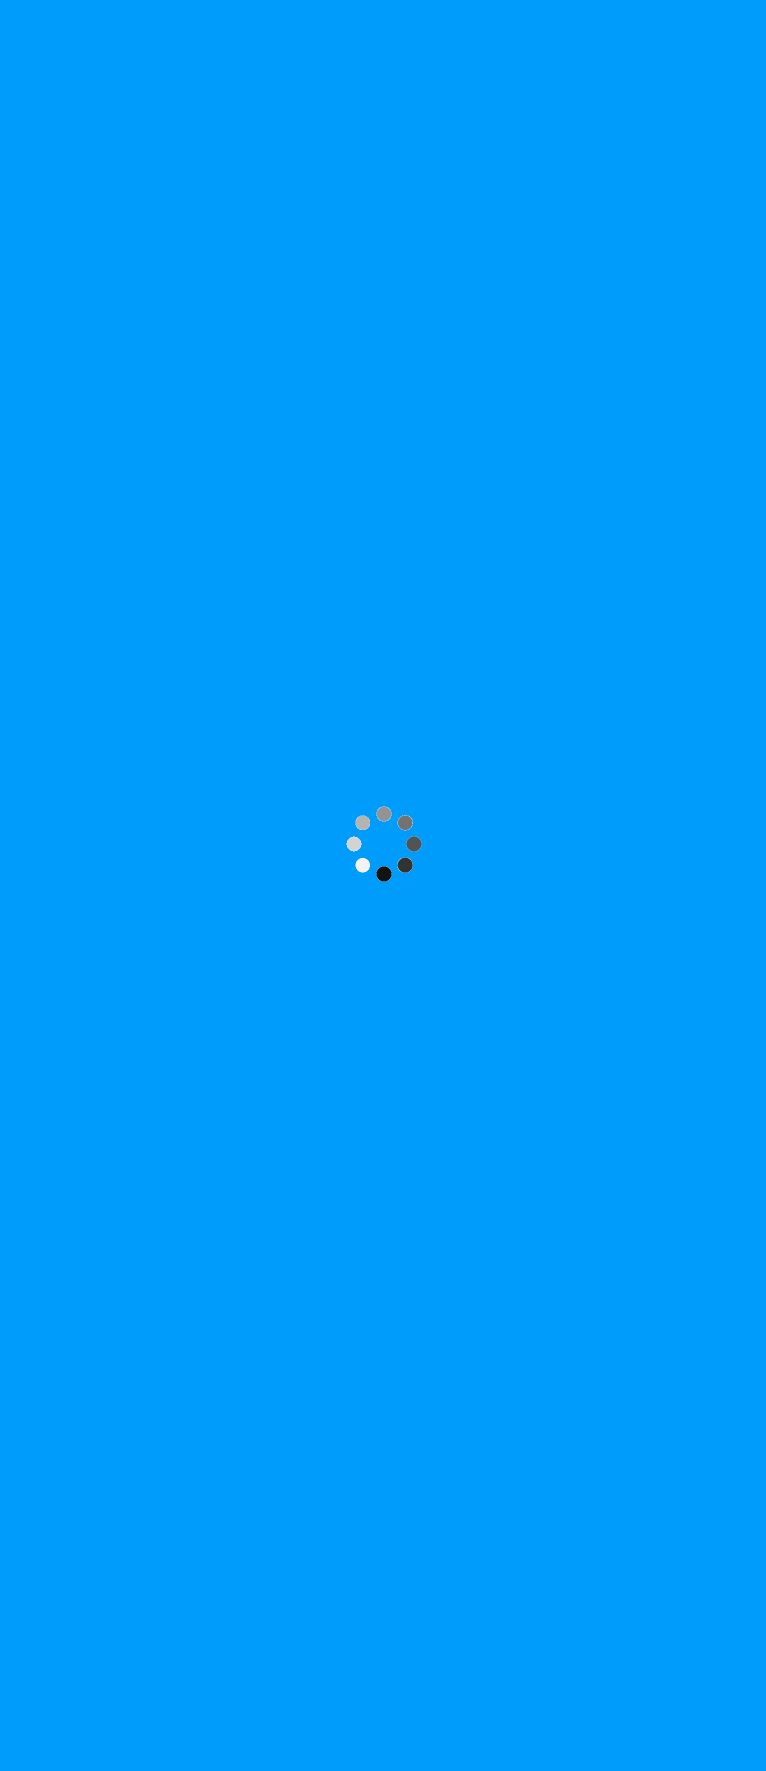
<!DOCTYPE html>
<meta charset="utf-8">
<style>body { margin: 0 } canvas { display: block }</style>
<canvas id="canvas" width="766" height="1771"></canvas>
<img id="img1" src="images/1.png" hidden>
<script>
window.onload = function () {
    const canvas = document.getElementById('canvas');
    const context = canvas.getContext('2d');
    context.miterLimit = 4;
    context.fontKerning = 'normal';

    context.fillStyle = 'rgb(0, 156, 251)';
    context.fillRect(0, 0, 766, 1771);
    context.drawImage(document.getElementById('img1'), 346, 806, 76, 76);
};
</script>
